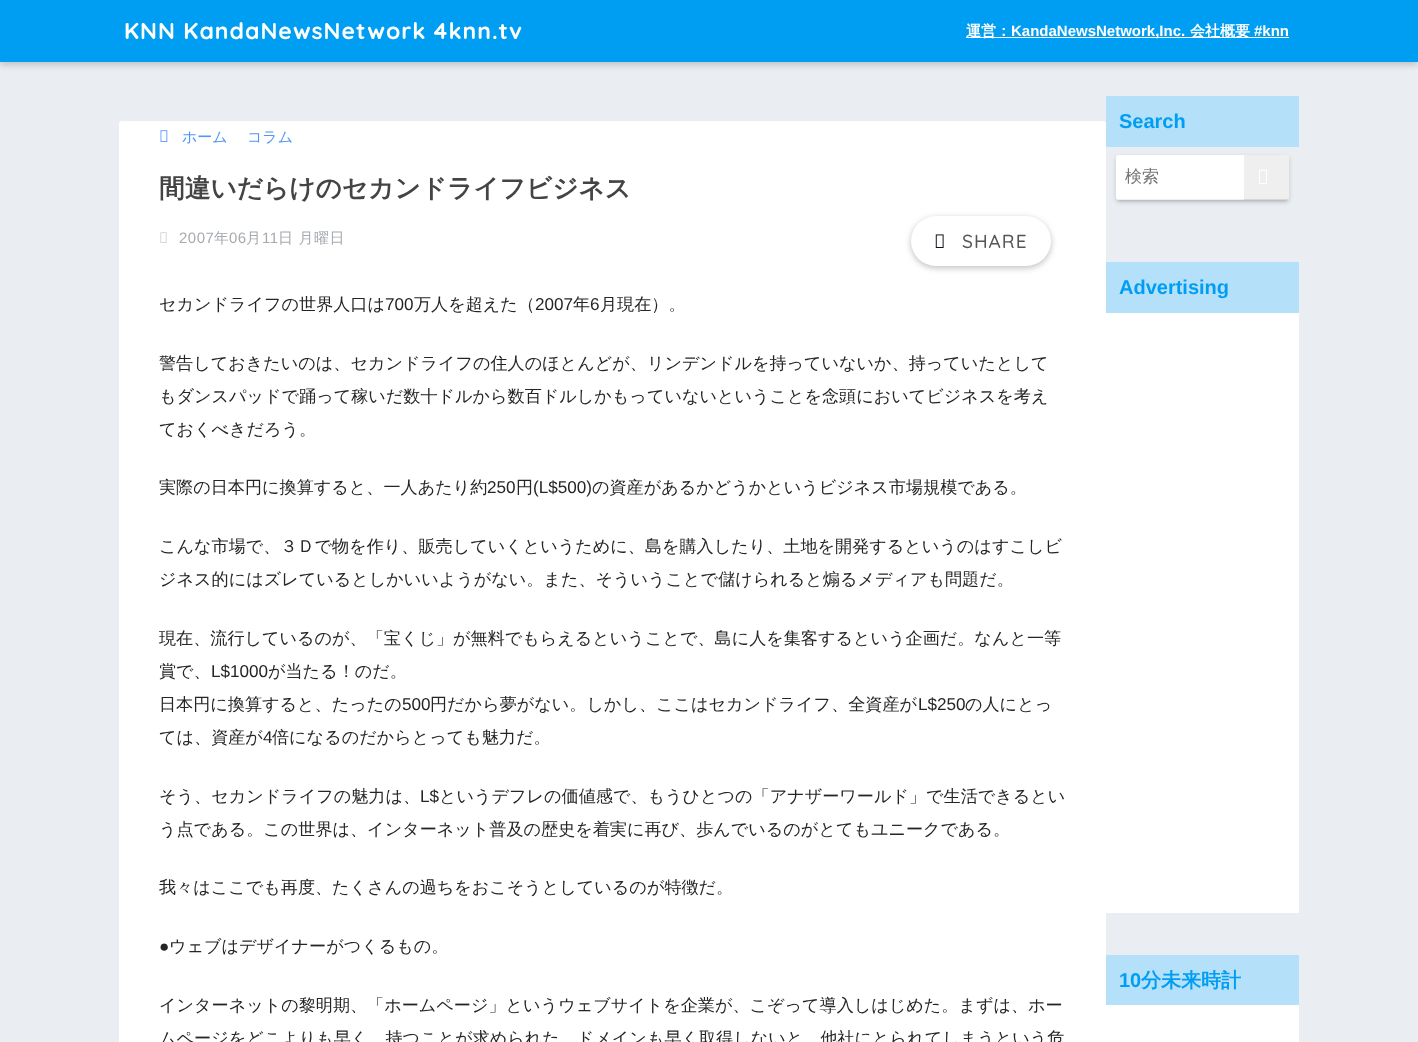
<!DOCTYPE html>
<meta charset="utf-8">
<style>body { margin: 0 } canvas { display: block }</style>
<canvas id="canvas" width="1418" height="1042"></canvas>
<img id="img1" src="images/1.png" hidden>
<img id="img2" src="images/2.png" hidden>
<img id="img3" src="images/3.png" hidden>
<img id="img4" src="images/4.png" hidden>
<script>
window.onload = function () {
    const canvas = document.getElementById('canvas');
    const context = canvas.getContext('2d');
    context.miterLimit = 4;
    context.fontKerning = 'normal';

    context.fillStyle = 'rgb(234, 237, 242)';
    context.fillRect(0, 0, 1418, 1042);
    context.fillStyle = 'rgba(0, 0, 0, 0.18)';
    context.filter = 'blur(3px)';
    context.beginPath();
    context.rect(0, 3, 1418, 62);
    context.fill();
    context.filter = 'none';
    context.fillStyle = 'rgb(0, 158, 243)';
    context.fillRect(0, 0, 1418, 62);
    context.fillStyle = 'rgb(255, 255, 255)';
    context.fillRect(966, 37, 323, 1);
    context.beginPath();
    context.roundRect(119, 121, 987, 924, 3);
    context.fill();
    context.drawImage(document.getElementById('img1'), 160, 130, 8, 12);
    context.drawImage(document.getElementById('img2'), 160, 232, 7, 11);
    context.fillStyle = 'rgba(0, 0, 0, 0.25)';
    context.filter = 'blur(3px)';
    context.beginPath();
    context.roundRect(911, 218, 140, 50, 25);
    context.fill();
    context.filter = 'none';
    context.fillStyle = 'rgb(255, 255, 255)';
    context.beginPath();
    context.roundRect(911, 216, 140, 50, 25);
    context.fill();
    context.drawImage(document.getElementById('img3'), 935, 234, 9, 14);
    context.fillStyle = 'rgb(180, 224, 250)';
    context.fillRect(1106, 96, 193, 51);
    context.fillStyle = 'rgba(0, 0, 0, 0.15)';
    context.filter = 'blur(1.5px)';
    context.beginPath();
    context.roundRect(1118, 160, 169, 41, 1);
    context.fill();
    context.filter = 'none';
    context.filter = 'blur(2.5px)';
    context.beginPath();
    context.roundRect(1116, 157, 173, 45, 3);
    context.fill();
    context.filter = 'none';
    context.fillStyle = 'rgb(255, 255, 255)';
    context.beginPath();
    context.roundRect(1116, 155, 173, 45, 3);
    context.fill();
    context.fillStyle = 'rgb(239, 239, 239)';
    context.fillRect(1118, 199, 126, 1);
    context.beginPath();
    context.roundRect(1244, 155, 45, 45, [0, 3, 3, 0]);
    context.fill();
    context.fillStyle = 'rgb(215, 215, 215)';
    context.fillRect(1244, 199, 44, 1);
    context.drawImage(document.getElementById('img4'), 1259, 169, 8, 15);
    context.fillStyle = 'rgb(255, 255, 255)';
    context.fillRect(1106, 313, 193, 600);
    context.fillStyle = 'rgb(180, 224, 250)';
    context.fillRect(1106, 262, 193, 51);
    context.fillStyle = 'rgb(255, 255, 255)';
    context.fillRect(1106, 1005, 193, 37);
    context.fillStyle = 'rgb(180, 224, 250)';
    context.fillRect(1106, 955, 193, 50);
    context.letterSpacing = '1px';
    context.font = 'bold 23px Quicksand';
    context.fillStyle = 'rgb(255, 255, 255)';
    context.fillText('KNN KandaNewsNetwork 4knn.tv', 124, 39);
    context.letterSpacing = '0px';
    context.font = 'bold 15px WenQuanYi Zen Hei';
    context.fillText('運営：', 966, 36);
    context.font = 'bold 15px Liberation Sans';
    context.fillText('KandaNewsNetwork,Inc.', 1011, 36);
    context.font = 'bold 15px WenQuanYi Zen Hei';
    context.fillText('会社概要', 1190, 36);
    context.font = 'bold 15px Liberation Sans';
    context.fillText('#knn', 1254, 36);
    context.font = '500 15px WenQuanYi Zen Hei';
    context.fillStyle = 'rgb(79, 150, 246)';
    context.fillText('ホーム', 182, 142);
    context.fillText('コラム', 247, 142);
    context.font = 'bold 25.7px WenQuanYi Zen Hei';
    context.fillStyle = 'rgb(68, 68, 68)';
    context.fillText('間違いだらけのセカンドライフビジネス', 159, 197);
    context.letterSpacing = '0.5px';
    context.font = '15px Liberation Sans';
    context.fillStyle = 'rgb(165, 170, 175)';
    context.fillText('2007', 179, 243);
    context.font = '500 15px WenQuanYi Zen Hei';
    context.fillText('年', 214, 243);
    context.font = '15px Liberation Sans';
    context.fillText('06', 229, 243);
    context.font = '500 15px WenQuanYi Zen Hei';
    context.fillText('月', 246, 243);
    context.font = '15px Liberation Sans';
    context.fillText('11', 262, 243);
    context.font = '500 15px WenQuanYi Zen Hei';
    context.fillText('日 月曜日', 278, 243);
    context.letterSpacing = '1px';
    context.font = '500 19px Quicksand';
    context.fillStyle = 'rgb(85, 85, 85)';
    context.fillText('SHARE', 962, 248);
    context.letterSpacing = '0px';
    context.font = '500 17.12px WenQuanYi Zen Hei';
    context.fillStyle = 'rgb(37, 37, 37)';
    context.fillText('セカンドライフの世界人口は', 159, 310);
    context.font = '17.12px Liberation Sans';
    context.fillText('700', 385, 310);
    context.font = '500 17.12px WenQuanYi Zen Hei';
    context.fillText('万人を超えた（', 414, 310);
    context.font = '17.12px Liberation Sans';
    context.fillText('2007', 535, 310);
    context.font = '500 17.12px WenQuanYi Zen Hei';
    context.fillText('年', 573, 310);
    context.font = '17.12px Liberation Sans';
    context.fillText('6', 590, 310);
    context.font = '500 17.12px WenQuanYi Zen Hei';
    context.fillText('月現在）。', 600, 310);
    context.fillText('警告しておきたいのは、セカンドライフの住人のほとんどが、リンデンドルを持っていないか、持っていたとして', 159, 369);
    context.fillText('もダンスパッドで踊って稼いだ数十ドルから数百ドルしかもっていないということを念頭においてビジネスを考え', 159, 402);
    context.fillText('ておくべきだろう。', 159, 435);
    context.fillText('実際の日本円に換算すると、一人あたり約', 159, 493);
    context.font = '17.12px Liberation Sans';
    context.fillText('250', 487, 493);
    context.font = '500 17.12px WenQuanYi Zen Hei';
    context.fillText('円', 516, 493);
    context.font = '17.12px Liberation Sans';
    context.fillText('(L$500)', 533, 493);
    context.font = '500 17.12px WenQuanYi Zen Hei';
    context.fillText('の資産があるかどうかというビジネス市場規模である。', 592, 493);
    context.fillText('こんな市場で、３Ｄで物を作り、販売していくというために、島を購入したり、土地を開発するというのはすこしビ', 159, 552);
    context.fillText('ジネス的にはズレているとしかいいようがない。また、そういうことで儲けられると煽るメディアも問題だ。', 159, 585);
    context.fillText('現在、流行しているのが、「宝くじ」が無料でもらえるということで、島に人を集客するという企画だ。なんと一等', 159, 644);
    context.fillText('賞で、', 159, 677);
    context.font = '17.12px Liberation Sans';
    context.fillText('L$1000', 211, 677);
    context.font = '500 17.12px WenQuanYi Zen Hei';
    context.fillText('が当たる！のだ。', 268, 677);
    context.fillText('日本円に換算すると、たったの', 159, 710);
    context.font = '17.12px Liberation Sans';
    context.fillText('500', 402, 710);
    context.font = '500 17.12px WenQuanYi Zen Hei';
    context.fillText('円だから夢がない。しかし、ここはセカンドライフ、全資産が', 430, 710);
    context.font = '17.12px Liberation Sans';
    context.fillText('L$250', 918, 710);
    context.font = '500 17.12px WenQuanYi Zen Hei';
    context.fillText('の人にとっ', 965, 710);
    context.fillText('ては、資産が', 159, 743);
    context.font = '17.12px Liberation Sans';
    context.fillText('4', 263, 743);
    context.font = '500 17.12px WenQuanYi Zen Hei';
    context.fillText('倍になるのだからとっても魅力だ。', 272, 743);
    context.fillText('そう、セカンドライフの魅力は、', 159, 802);
    context.font = '17.12px Liberation Sans';
    context.fillText('L$', 420, 802);
    context.font = '500 17.12px WenQuanYi Zen Hei';
    context.fillText('というデフレの価値感で、もうひとつの「アナザーワールド」で生活できるとい', 439, 802);
    context.fillText('う点である。この世界は、インターネット普及の歴史を着実に再び、歩んでいるのがとてもユニークである。', 159, 835);
    context.fillText('我々はここでも再度、たくさんの過ちをおこそうとしているのが特徴だ。', 159, 893);
    context.font = '17.12px Liberation Sans';
    context.fillText('●', 159, 952);
    context.font = '500 17.12px WenQuanYi Zen Hei';
    context.fillText('ウェブはデザイナーがつくるもの。', 169, 952);
    context.fillText('インターネットの黎明期、「ホームページ」というウェブサイトを企業が、こぞって導入しはじめた。まずは、ホー', 159, 1011);
    context.fillText('ムページをどこよりも早く、持つことが求められた。ドメインも早く取得しないと、他社にとられてしまうという危', 159, 1044);
    context.font = 'bold 20px Liberation Sans';
    context.fillStyle = 'rgb(0, 158, 243)';
    context.fillText('Search', 1119, 128);
    context.font = '500 17px WenQuanYi Zen Hei';
    context.fillStyle = 'rgb(117, 117, 117)';
    context.fillText('検索', 1125, 182);
    context.font = 'bold 20px Liberation Sans';
    context.fillStyle = 'rgb(0, 158, 243)';
    context.fillText('Advertising', 1119, 294);
    context.fillText('10', 1119, 987);
    context.font = 'bold 20px WenQuanYi Zen Hei';
    context.fillText('分未来時計', 1141, 987);
};
</script>
